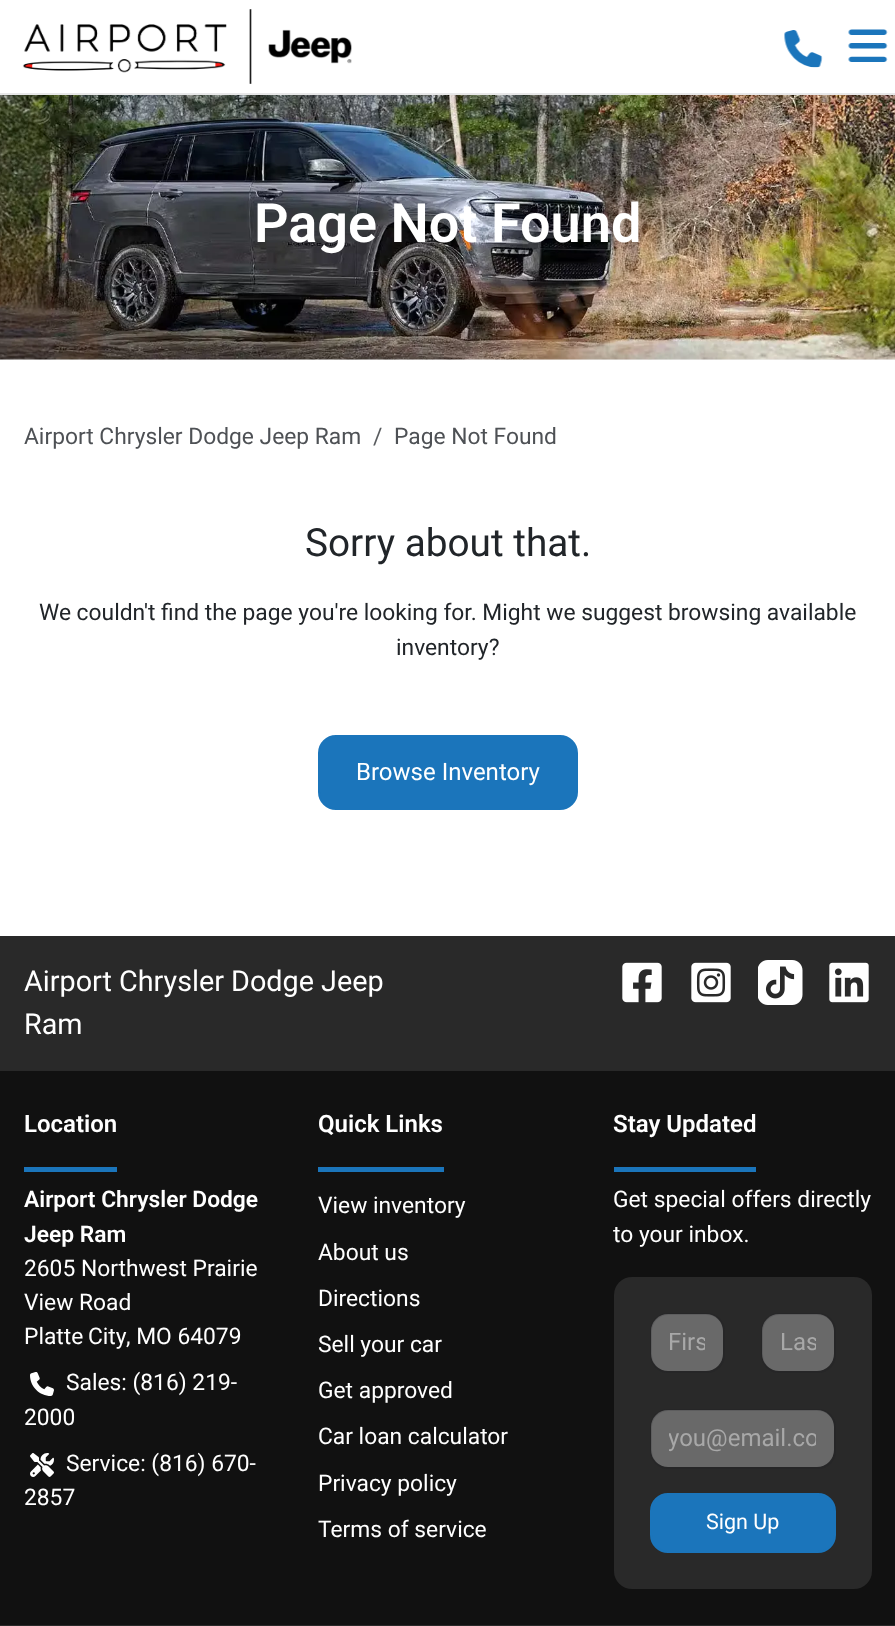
<!DOCTYPE html>
<meta charset="utf-8">
<style>body { margin: 0 } canvas { display: block }</style>
<canvas id="canvas" width="895" height="1626"></canvas>
<img id="img1" src="images/1.png" hidden>
<img id="img2" src="images/2.png" hidden>
<img id="img3" src="images/3.png" hidden>
<img id="img4" src="images/4.png" hidden>
<img id="img5" src="images/5.png" hidden>
<img id="img6" src="images/6.png" hidden>
<img id="img7" src="images/7.png" hidden>
<img id="img8" src="images/8.png" hidden>
<img id="img9" src="images/9.png" hidden>
<img id="img10" src="images/10.png" hidden>
<script>
window.onload = function () {
    const canvas = document.getElementById('canvas');
    const context = canvas.getContext('2d');
    context.miterLimit = 4;
    context.fontKerning = 'normal';

    context.fillStyle = 'rgb(245, 245, 245)';
    context.fillRect(0, 0, 895, 1626);
    context.fillStyle = 'rgb(255, 255, 255)';
    context.fillRect(0, 0, 895, 93);
    context.fillStyle = 'rgb(232, 232, 233)';
    context.fillRect(0, 93, 895, 2);
    context.drawImage(document.getElementById('img1'), 22, 9, 330, 75);
    context.drawImage(document.getElementById('img2'), 784, 30, 39, 38);
    context.drawImage(document.getElementById('img3'), 848, 29, 40, 33);
    context.drawImage(document.getElementById('img4'), 0, 95, 895, 265);
    context.fillStyle = 'rgb(255, 255, 255)';
    context.fillRect(0, 360, 895, 576);
    context.fillStyle = 'rgb(27, 117, 187)';
    context.beginPath();
    context.roundRect(319, 736, 258, 73, 17);
    context.fill();
    context.strokeStyle = 'rgb(27, 117, 187)';
    context.lineWidth = 2;
    context.stroke();
    context.fillStyle = 'rgb(17, 17, 17)';
    context.fillRect(0, 1071, 895, 554);
    context.fillStyle = 'rgb(41, 41, 41)';
    context.fillRect(0, 936, 895, 135);
    context.drawImage(document.getElementById('img5'), 622, 962, 40, 41);
    context.drawImage(document.getElementById('img6'), 691, 962, 40, 41);
    context.drawImage(document.getElementById('img7'), 758, 960, 45, 45);
    context.drawImage(document.getElementById('img8'), 829, 962, 40, 41);
    context.fillStyle = 'rgb(27, 117, 187)';
    context.fillRect(24, 1167, 93, 5);
    context.drawImage(document.getElementById('img9'), 30, 1372, 24, 24);
    context.drawImage(document.getElementById('img10'), 30, 1453, 24, 24);
    context.fillRect(318, 1167, 126, 5);
    context.fillRect(614, 1167, 142, 5);
    context.fillStyle = 'rgb(41, 41, 41)';
    context.beginPath();
    context.roundRect(614, 1277, 258, 312, 18);
    context.fill();
    context.fillStyle = 'rgb(105, 105, 105)';
    context.beginPath();
    context.roundRect(651, 1314, 72, 57, 17);
    context.fill();
    context.beginPath();
    context.roundRect(651, 1314, 73, 58, 17);
    context.strokeStyle = 'rgba(24, 28, 33, 0.15)';
    context.stroke();
    context.beginPath();
    context.roundRect(762, 1314, 72, 57, 17);
    context.fill();
    context.beginPath();
    context.roundRect(762, 1314, 73, 58, 17);
    context.stroke();
    context.beginPath();
    context.roundRect(651, 1410, 183, 57, 17);
    context.fill();
    context.beginPath();
    context.roundRect(651, 1410, 184, 58, 17);
    context.stroke();
    context.fillStyle = 'rgb(27, 117, 187)';
    context.beginPath();
    context.roundRect(651, 1494, 184, 58, 17);
    context.fill();
    context.strokeStyle = 'rgb(27, 117, 187)';
    context.stroke();
    context.fillStyle = 'rgb(41, 41, 41)';
    context.fillRect(0, 1625, 895, 1);
    context.font = '600 54px Roboto';
    context.fillStyle = 'rgb(255, 255, 255)';
    context.fillText('Page Not Found', 254, 242);
    context.font = '22.8px Roboto';
    context.fillStyle = 'rgb(78, 81, 85)';
    context.fillText('Airport Chrysler Dodge Jeep Ram', 24, 444);
    context.fillStyle = 'rgb(89, 92, 95)';
    context.fillText('/', 373, 444);
    context.fillStyle = 'rgb(78, 81, 85)';
    context.fillText('Page Not Found', 394, 444);
    context.font = '38.75px Roboto';
    context.fillStyle = 'rgb(33, 37, 41)';
    context.fillText('Sorry about that.', 305, 556);
    context.font = '22.8px Roboto';
    context.fillText('We couldn\'t find the page you\'re looking for. Might we suggest browsing available', 39, 620);
    context.fillText('inventory?', 396, 655);
    context.font = '24px Roboto';
    context.fillStyle = 'rgb(255, 255, 255)';
    context.fillText('Browse Inventory', 356, 780);
    context.font = '28.75px Roboto';
    context.fillText('Airport Chrysler Dodge Jeep', 24, 991);
    context.fillText('Ram', 24, 1034);
    context.font = '600 24px Roboto';
    context.fillText('Location', 24, 1132);
    context.font = '600 22.8px Roboto';
    context.fillText('Airport Chrysler Dodge', 24, 1207);
    context.fillText('Jeep Ram', 24, 1242);
    context.font = '22.8px Roboto';
    context.fillText('2605 Northwest Prairie', 24, 1276);
    context.fillText('View Road', 24, 1310);
    context.wordSpacing = '-1px';
    context.fillText('Platte City', 24, 1344);
    context.wordSpacing = '0px';
    context.fillText(', MO 64079', 126, 1344);
    context.fillText('Sales: (816) 219-', 66, 1390);
    context.fillText('2000', 24, 1425);
    context.fillText('Service: (816) 670-', 66, 1471);
    context.fillText('2857', 24, 1505);
    context.font = '600 24px Roboto';
    context.fillText('Quick Links', 318, 1132);
    context.font = '22.8px Roboto';
    context.fillText('View inventory', 318, 1213);
    context.fillText('About us', 318, 1260);
    context.fillText('Directions', 318, 1306);
    context.fillText('Sell your car', 318, 1352);
    context.fillText('Get approved', 318, 1398);
    context.fillText('Car loan calculator', 318, 1444);
    context.fillText('Privacy policy', 318, 1491);
    context.fillText('Terms of service', 318, 1537);
    context.font = '600 24px Roboto';
    context.fillText('Stay Updated', 613, 1132);
    context.font = '22.8px Roboto';
    context.fillText('Get special offers directly', 613, 1207);
    context.fillText('to your inbox.', 613, 1242);
    context.save();
    context.beginPath();
    context.rect(669, 1328, 36, 28);
    context.clip();
    context.font = '24px Roboto';
    context.fillStyle = 'rgb(168, 168, 168)';
    context.fillText('Firs', 668, 1350);
    context.restore();
    context.save();
    context.beginPath();
    context.rect(780, 1328, 36, 28);
    context.clip();
    context.font = '24px Roboto';
    context.fillStyle = 'rgb(168, 168, 168)';
    context.fillText('Las', 780, 1350);
    context.restore();
    context.save();
    context.beginPath();
    context.rect(669, 1424, 147, 28);
    context.clip();
    context.font = '24px Roboto';
    context.fillStyle = 'rgb(168, 168, 168)';
    context.fillText('you@email.co', 668, 1446);
    context.restore();
    context.font = '21.5px Roboto';
    context.fillText('Sign Up', 706, 1529);
};
</script>
